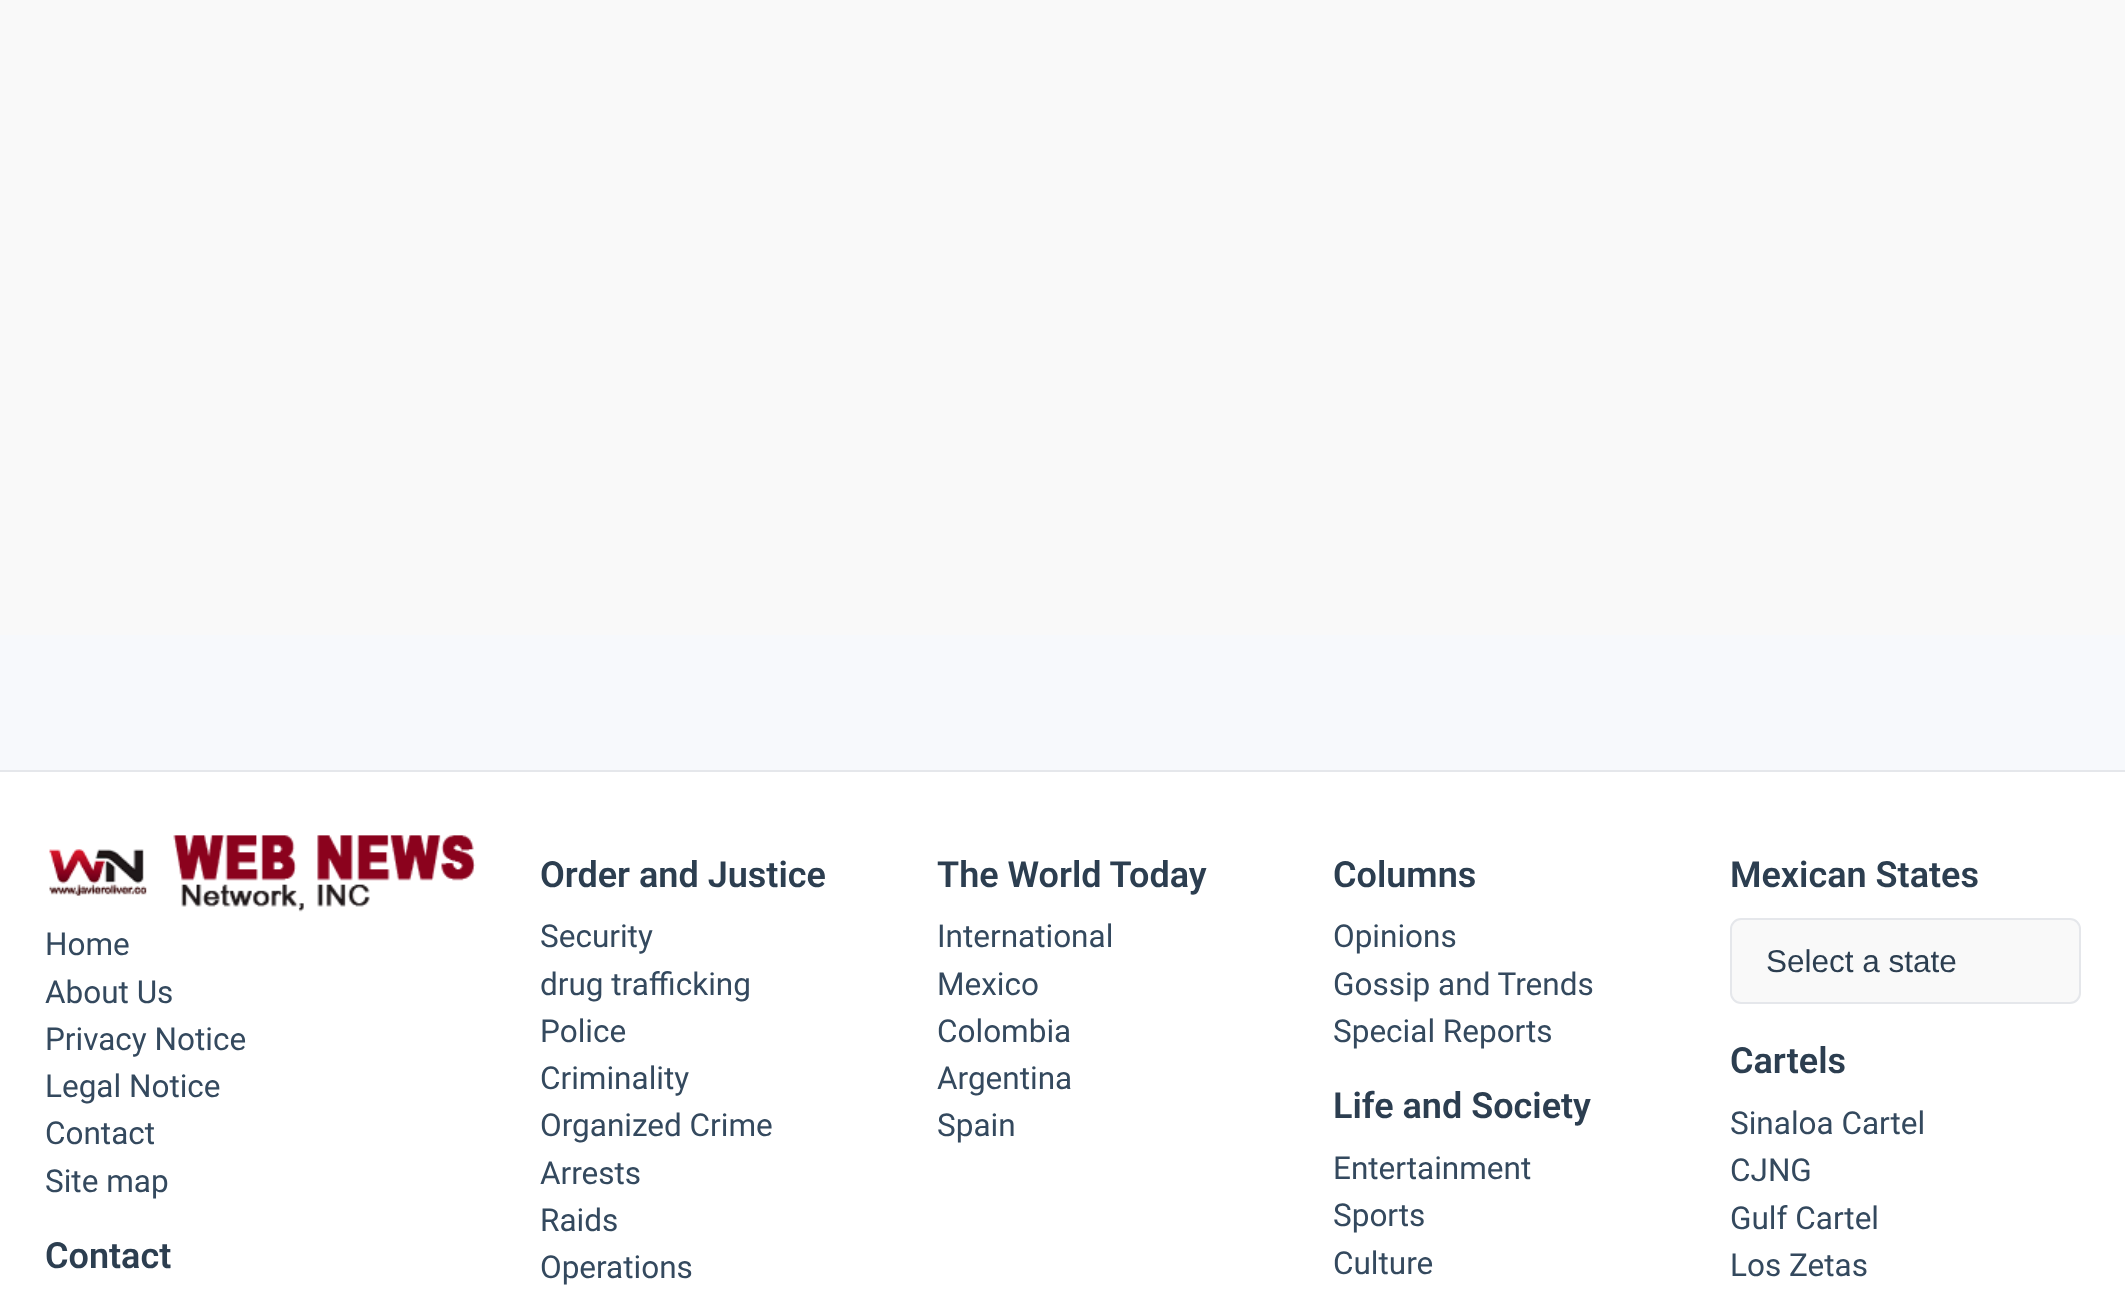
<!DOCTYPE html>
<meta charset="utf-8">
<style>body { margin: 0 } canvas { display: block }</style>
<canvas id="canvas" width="2125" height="1296"></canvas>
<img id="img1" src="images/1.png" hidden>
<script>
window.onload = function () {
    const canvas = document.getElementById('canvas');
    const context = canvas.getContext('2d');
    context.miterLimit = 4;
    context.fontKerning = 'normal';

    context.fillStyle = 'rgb(247, 249, 252)';
    context.fillRect(0, 0, 2125, 1296);
    context.fillStyle = 'rgb(249, 249, 249)';
    context.fillRect(0, 0, 2125, 635);
    context.fillStyle = 'rgb(255, 255, 255)';
    context.fillRect(0, 772, 2125, 524);
    context.fillStyle = 'rgb(229, 231, 235)';
    context.fillRect(0, 770, 2125, 2);
    context.drawImage(document.getElementById('img1'), 49, 835, 427, 77);
    context.fillStyle = 'rgb(249, 249, 249)';
    context.beginPath();
    context.roundRect(1731, 919, 349, 84, 10);
    context.fill();
    context.strokeStyle = 'rgb(229, 231, 235)';
    context.lineWidth = 2;
    context.stroke();
    context.font = '31.5px Roboto';
    context.fillStyle = 'rgb(52, 73, 94)';
    context.fillText('Home', 45, 955);
    context.fillText('About Us', 45, 1003);
    context.fillText('Privacy Notice', 45, 1050);
    context.fillText('Legal Notice', 45, 1097);
    context.fillText('Contact', 45, 1144);
    context.fillText('Site map', 45, 1192);
    context.font = '600 36px Roboto';
    context.fillStyle = 'rgb(44, 62, 80)';
    context.fillText('Contact', 45, 1268);
    context.fillText('Order and Justice', 540, 887);
    context.font = '31.5px Roboto';
    context.fillStyle = 'rgb(52, 73, 94)';
    context.fillText('Security', 540, 947);
    context.fillText('drug trafficking', 540, 995);
    context.fillText('Police', 540, 1042);
    context.fillText('Criminality', 540, 1089);
    context.fillText('Organized Crime', 540, 1136);
    context.fillText('Arrests', 540, 1184);
    context.fillText('Raids', 540, 1231);
    context.fillText('Operations', 540, 1278);
    context.font = '600 36px Roboto';
    context.fillStyle = 'rgb(44, 62, 80)';
    context.fillText('The World Today', 937, 887);
    context.font = '31.5px Roboto';
    context.fillStyle = 'rgb(52, 73, 94)';
    context.fillText('International', 937, 947);
    context.fillText('Mexico', 937, 995);
    context.fillText('Colombia', 937, 1042);
    context.fillText('Argentina', 937, 1089);
    context.fillText('Spain', 937, 1136);
    context.font = '600 36px Roboto';
    context.fillStyle = 'rgb(44, 62, 80)';
    context.fillText('Columns', 1333, 887);
    context.font = '31.5px Roboto';
    context.fillStyle = 'rgb(52, 73, 94)';
    context.fillText('Opinions', 1333, 947);
    context.fillText('Gossip and Trends', 1333, 995);
    context.fillText('Special Reports', 1333, 1042);
    context.font = '600 36px Roboto';
    context.fillStyle = 'rgb(44, 62, 80)';
    context.fillText('Life and Society', 1333, 1118);
    context.font = '31.5px Roboto';
    context.fillStyle = 'rgb(52, 73, 94)';
    context.fillText('Entertainment', 1333, 1179);
    context.fillText('Sports', 1333, 1226);
    context.fillText('Culture', 1333, 1274);
    context.font = '600 36px Roboto';
    context.fillStyle = 'rgb(44, 62, 80)';
    context.fillText('Mexican States', 1730, 887);
    context.font = '31.5px Liberation Sans';
    context.fillText('Select a state', 1766, 972);
    context.font = '600 36px Roboto';
    context.fillText('Cartels', 1730, 1073);
    context.font = '31.5px Roboto';
    context.fillStyle = 'rgb(52, 73, 94)';
    context.fillText('Sinaloa Cartel', 1730, 1134);
    context.fillText('CJNG', 1730, 1181);
    context.fillText('Gulf Cartel', 1730, 1229);
    context.fillText('Los Zetas', 1730, 1276);
};
</script>
